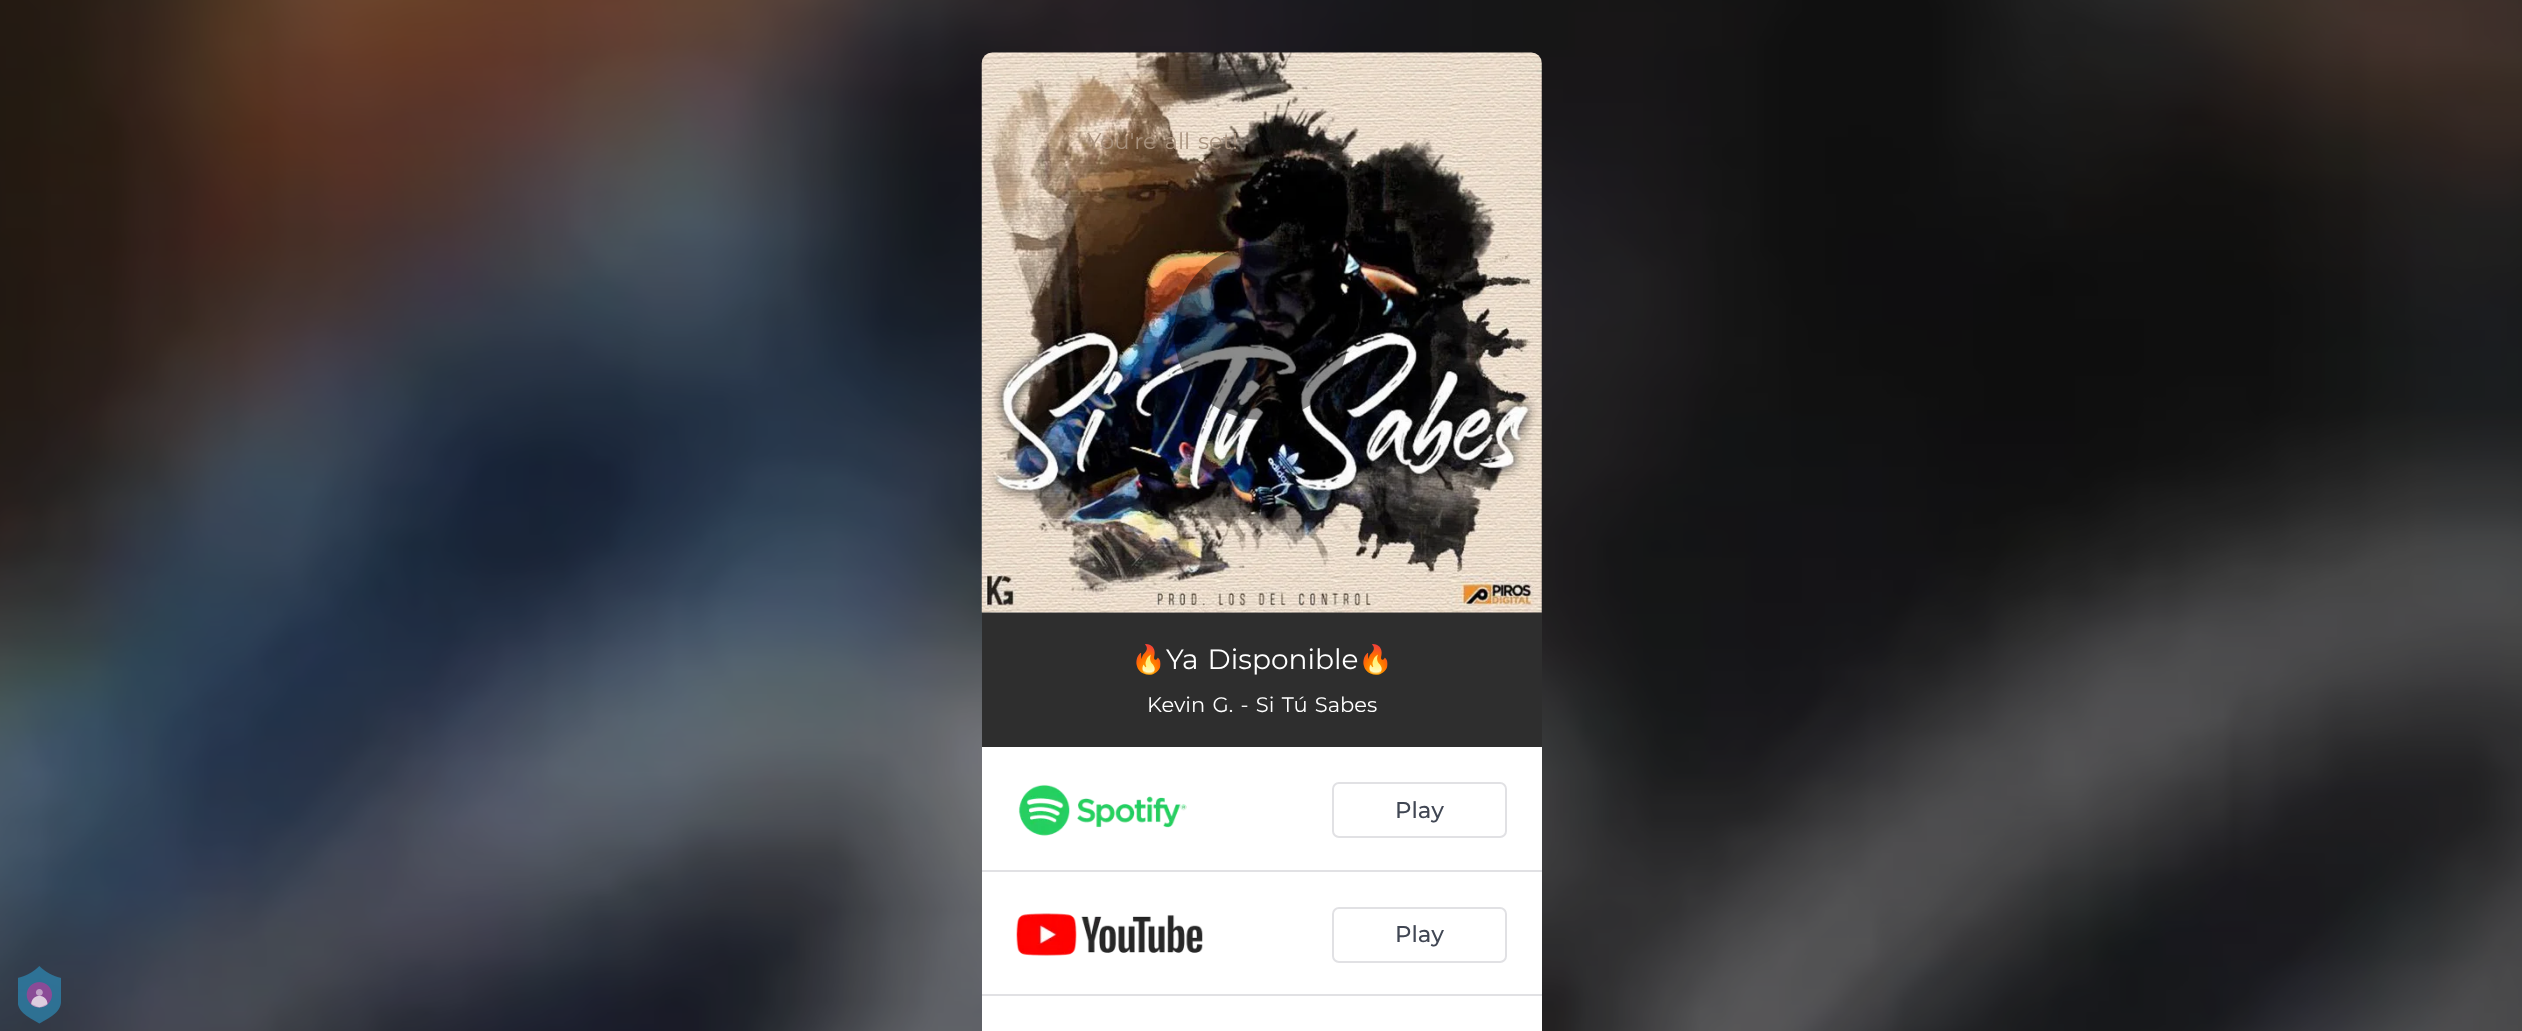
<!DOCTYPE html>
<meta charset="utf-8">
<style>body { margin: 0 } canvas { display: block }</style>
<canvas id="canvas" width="2522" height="1031"></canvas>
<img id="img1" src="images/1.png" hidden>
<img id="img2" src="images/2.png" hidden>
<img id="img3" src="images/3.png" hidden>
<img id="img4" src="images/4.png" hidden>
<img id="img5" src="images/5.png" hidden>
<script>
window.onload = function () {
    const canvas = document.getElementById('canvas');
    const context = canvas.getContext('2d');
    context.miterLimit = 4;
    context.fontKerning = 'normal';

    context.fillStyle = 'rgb(255, 255, 255)';
    context.fillRect(0, 0, 2522, 1031);
    context.drawImage(document.getElementById('img1'), 0, 0, 2522, 1031);
    context.drawImage(document.getElementById('img2'), 981, 52, 561, 561);
    context.fillStyle = 'rgba(0, 0, 0, 0.45)';
    context.beginPath();
    context.arc(1261.5, 332.5, 87.5, 0, 2 * Math.PI);
    context.fill();
    context.fillStyle = 'rgb(46, 46, 46)';
    context.fillRect(982, 613, 560, 134);
    context.fillStyle = 'rgb(255, 255, 255)';
    context.fillRect(982, 747, 560, 284);
    context.fillStyle = 'rgb(225, 225, 228)';
    context.fillRect(982, 870, 560, 2);
    context.drawImage(document.getElementById('img3'), 1018, 784, 169, 52);
    context.beginPath();
    context.roundRect(1333, 783, 173, 54, 6);
    context.strokeStyle = 'rgb(225, 225, 228)';
    context.lineWidth = 2;
    context.stroke();
    context.fillRect(982, 994, 560, 2);
    context.drawImage(document.getElementById('img4'), 1016, 913, 187, 43);
    context.beginPath();
    context.roundRect(1333, 908, 173, 54, 6);
    context.stroke();
    context.drawImage(document.getElementById('img5'), 18, 966, 43, 58);
    context.wordSpacing = '1.75px';
    context.font = '22.75px Montserrat';
    context.fillStyle = 'rgb(169, 147, 127)';
    context.fillText('You\'re all set!', 1087, 149);
    context.wordSpacing = '0px';
    context.font = '28px Noto Color Emoji';
    context.fillStyle = 'rgb(255, 255, 255)';
    context.fillText('🔥', 1131, 669);
    context.wordSpacing = '1.75px';
    context.font = '28px Montserrat';
    context.fillText('Ya Disponible', 1166, 669);
    context.wordSpacing = '0px';
    context.font = '28px Noto Color Emoji';
    context.fillText('🔥', 1358, 669);
    context.wordSpacing = '1.75px';
    context.font = '21px Montserrat';
    context.fillText('Kevin G. - Si Tú Sabes', 1147, 712);
    context.wordSpacing = '0px';
    context.font = '500 22.75px Montserrat';
    context.fillStyle = 'rgb(65, 71, 84)';
    context.fillText('Play', 1395, 818);
    context.fillText('Play', 1395, 942);
};
</script>
